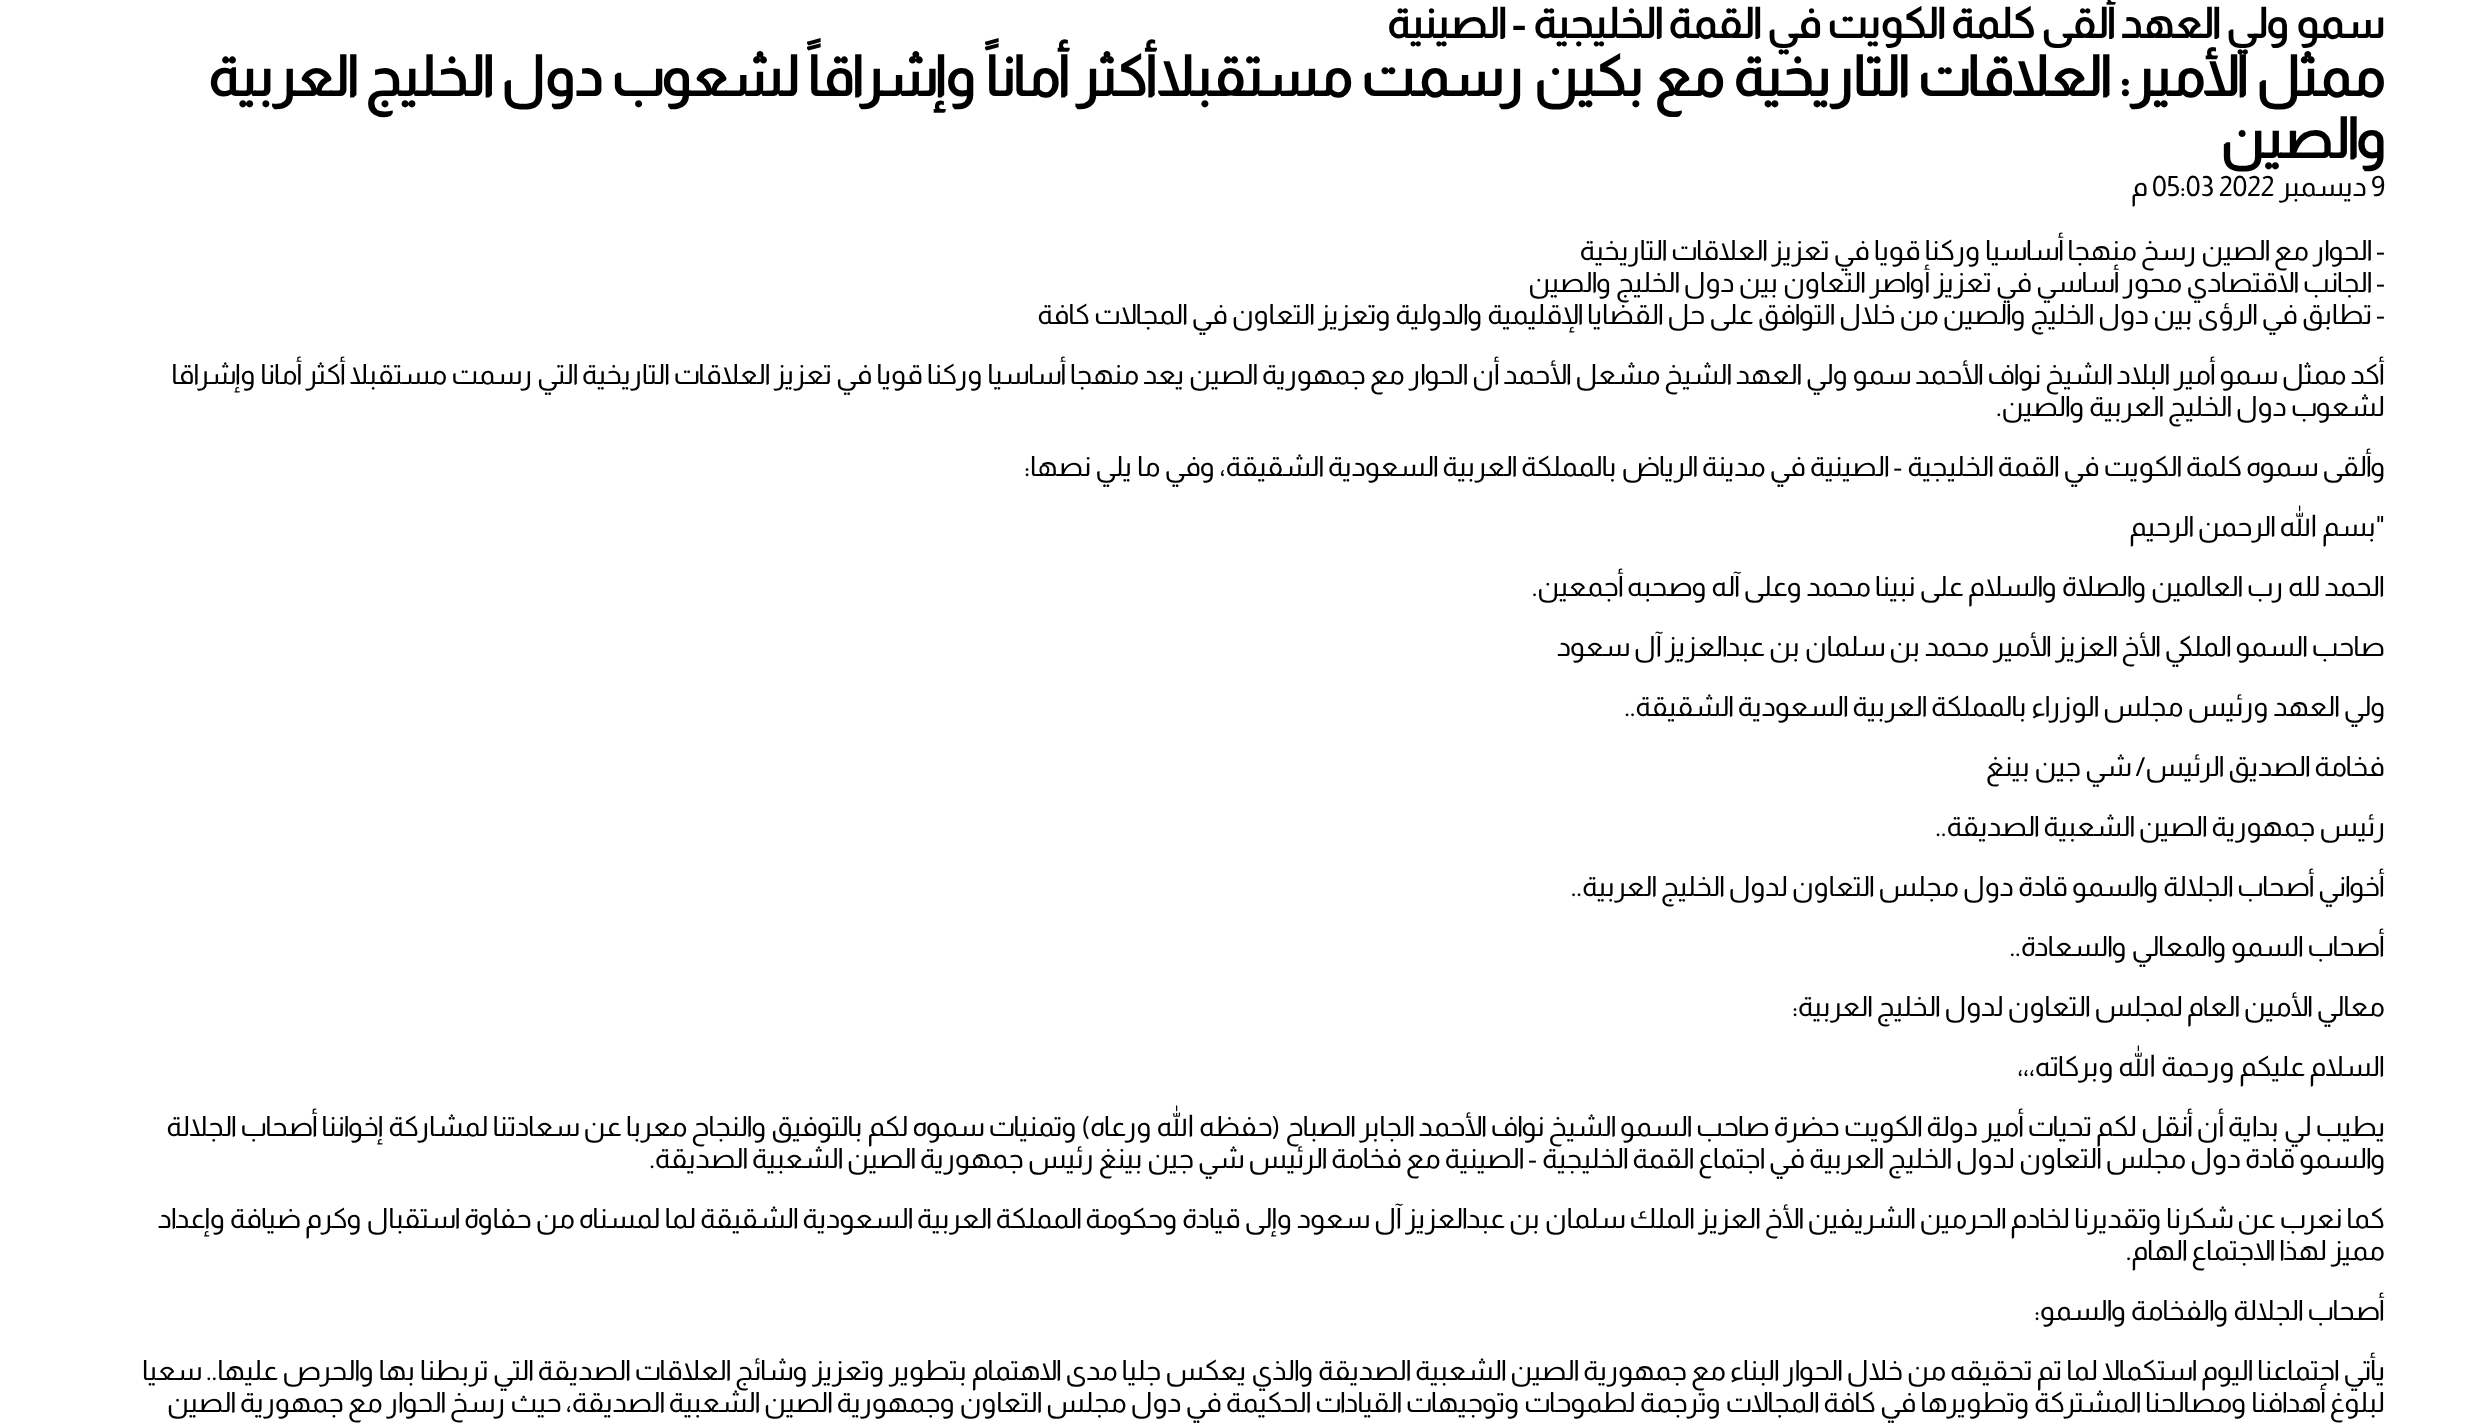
<!DOCTYPE html>
<meta charset="utf-8">
<style>body { margin: 0 } canvas { display: block }</style>
<canvas id="canvas" width="2490" height="1424"></canvas>
<script>
window.onload = function () {
    const canvas = document.getElementById('canvas');
    const context = canvas.getContext('2d');
    context.miterLimit = 4;
    context.fontKerning = 'normal';

    context.fillStyle = 'rgb(255, 255, 255)';
    context.fillRect(0, 0, 2490, 1424);
    context.direction = 'rtl';
    context.font = 'bold 42px Almarai';
    context.fillStyle = 'rgb(0, 0, 0)';
    context.fillText('سمو ولي العهد ألقى كلمة الكويت في القمة الخليجية - الصينية', 2385, 38);
    context.wordSpacing = '1px';
    context.font = 'bold 56px Almarai';
    context.fillText('ممثل الأمير: العلاقات التاريخية مع بكين رسمت مستقبلا', 2385, 96);
    context.wordSpacing = '0px';
    context.fillText('أكثر أماناً وإشراقاً لشعوب دول الخليج العربية', 1157, 96);
    context.fillText('والصين', 2385, 158);
    context.direction = 'ltr';
    context.font = '28px Almarai';
    context.fillText('9', 2371, 196);
    context.direction = 'rtl';
    context.fillText('ديسمبر', 2367, 196);
    context.direction = 'ltr';
    context.fillText('05:03 2022', 2152, 196);
    context.direction = 'rtl';
    context.fillText('م', 2148, 196);
    context.fillText('- الحوار مع الصين رسخ منهجا أساسيا وركنا قويا في تعزيز العلاقات التاريخية', 2385, 260);
    context.fillText('- الجانب الاقتصادي محور أساسي في تعزيز أواصر التعاون بين دول الخليج والصين', 2385, 292);
    context.fillText('- تطابق في الرؤى بين دول الخليج والصين من خلال التوافق على حل القضايا الإقليمية والدولية وتعزيز التعاون في المجالات كافة', 2385, 324);
    context.fillText('أكد ممثل سمو أمير البلاد الشيخ نواف الأحمد سمو ولي العهد الشيخ مشعل الأحمد أن الحوار مع جمهورية الصين يعد منهجا أساسيا وركنا قويا في تعزيز العلاقات التاريخية التي رسمت مستقبلا أكثر أمانا وإشراقا', 2385, 384);
    context.fillText('لشعوب دول الخليج العربية والصين.', 2385, 416);
    context.fillText('وألقى سموه كلمة الكويت في القمة الخليجية - الصينية في مدينة الرياض بالمملكة العربية السعودية الشقيقة، وفي ما يلي نصها:', 2385, 476);
    context.fillText('"بسم الله الرحمن الرحيم', 2385, 536);
    context.fillText('الحمد لله رب العالمين والصلاة والسلام على نبينا محمد وعلى آله وصحبه أجمعين.', 2385, 596);
    context.fillText('صاحب السمو الملكي الأخ العزيز الأمير محمد بن سلمان بن عبدالعزيز آل سعود', 2385, 656);
    context.fillText('ولي العهد ورئيس مجلس الوزراء بالمملكة العربية السعودية الشقيقة..', 2385, 716);
    context.fillText('فخامة الصديق الرئيس/ شي جين بينغ', 2385, 776);
    context.fillText('رئيس جمهورية الصين الشعبية الصديقة..', 2385, 836);
    context.fillText('أخواني أصحاب الجلالة والسمو قادة دول مجلس التعاون لدول الخليج العربية..', 2385, 896);
    context.fillText('أصحاب السمو والمعالي والسعادة..', 2385, 956);
    context.fillText('معالي الأمين العام لمجلس التعاون لدول الخليج العربية:', 2385, 1016);
    context.fillText('السلام عليكم ورحمة الله وبركاته،،،', 2385, 1076);
    context.fillText('يطيب لي بداية أن أنقل لكم تحيات أمير دولة الكويت حضرة صاحب السمو الشيخ نواف الأحمد الجابر الصباح (حفظه الله ورعاه) وتمنيات سموه لكم بالتوفيق والنجاح معربا عن سعادتنا لمشاركة إخواننا أصحاب الجلالة', 2385, 1136);
    context.fillText('والسمو قادة دول مجلس التعاون لدول الخليج العربية في اجتماع القمة الخليجية - الصينية مع فخامة الرئيس شي جين بينغ رئيس جمهورية الصين الشعبية الصديقة.', 2385, 1168);
    context.fillText('كما نعرب عن شكرنا وتقديرنا لخادم الحرمين الشريفين الأخ العزيز الملك سلمان بن عبدالعزيز آل سعود وإلى قيادة وحكومة المملكة العربية السعودية الشقيقة لما لمسناه من حفاوة استقبال وكرم ضيافة وإعداد', 2385, 1228);
    context.fillText('مميز لهذا الاجتماع الهام.', 2385, 1260);
    context.fillText('أصحاب الجلالة والفخامة والسمو:', 2385, 1320);
    context.fillText('يأتي اجتماعنا اليوم استكمالا لما تم تحقيقه من خلال الحوار البناء مع جمهورية الصين الشعبية الصديقة والذي يعكس جليا مدى الاهتمام بتطوير وتعزيز وشائج العلاقات الصديقة التي تربطنا بها والحرص عليها.. سعيا', 2385, 1380);
    context.fillText('لبلوغ أهدافنا ومصالحنا المشتركة وتطويرها في كافة المجالات وترجمة لطموحات وتوجيهات القيادات الحكيمة في دول مجلس التعاون وجمهورية الصين الشعبية الصديقة، حيث رسخ الحوار مع جمهورية الصين', 2385, 1412);
};
</script>
